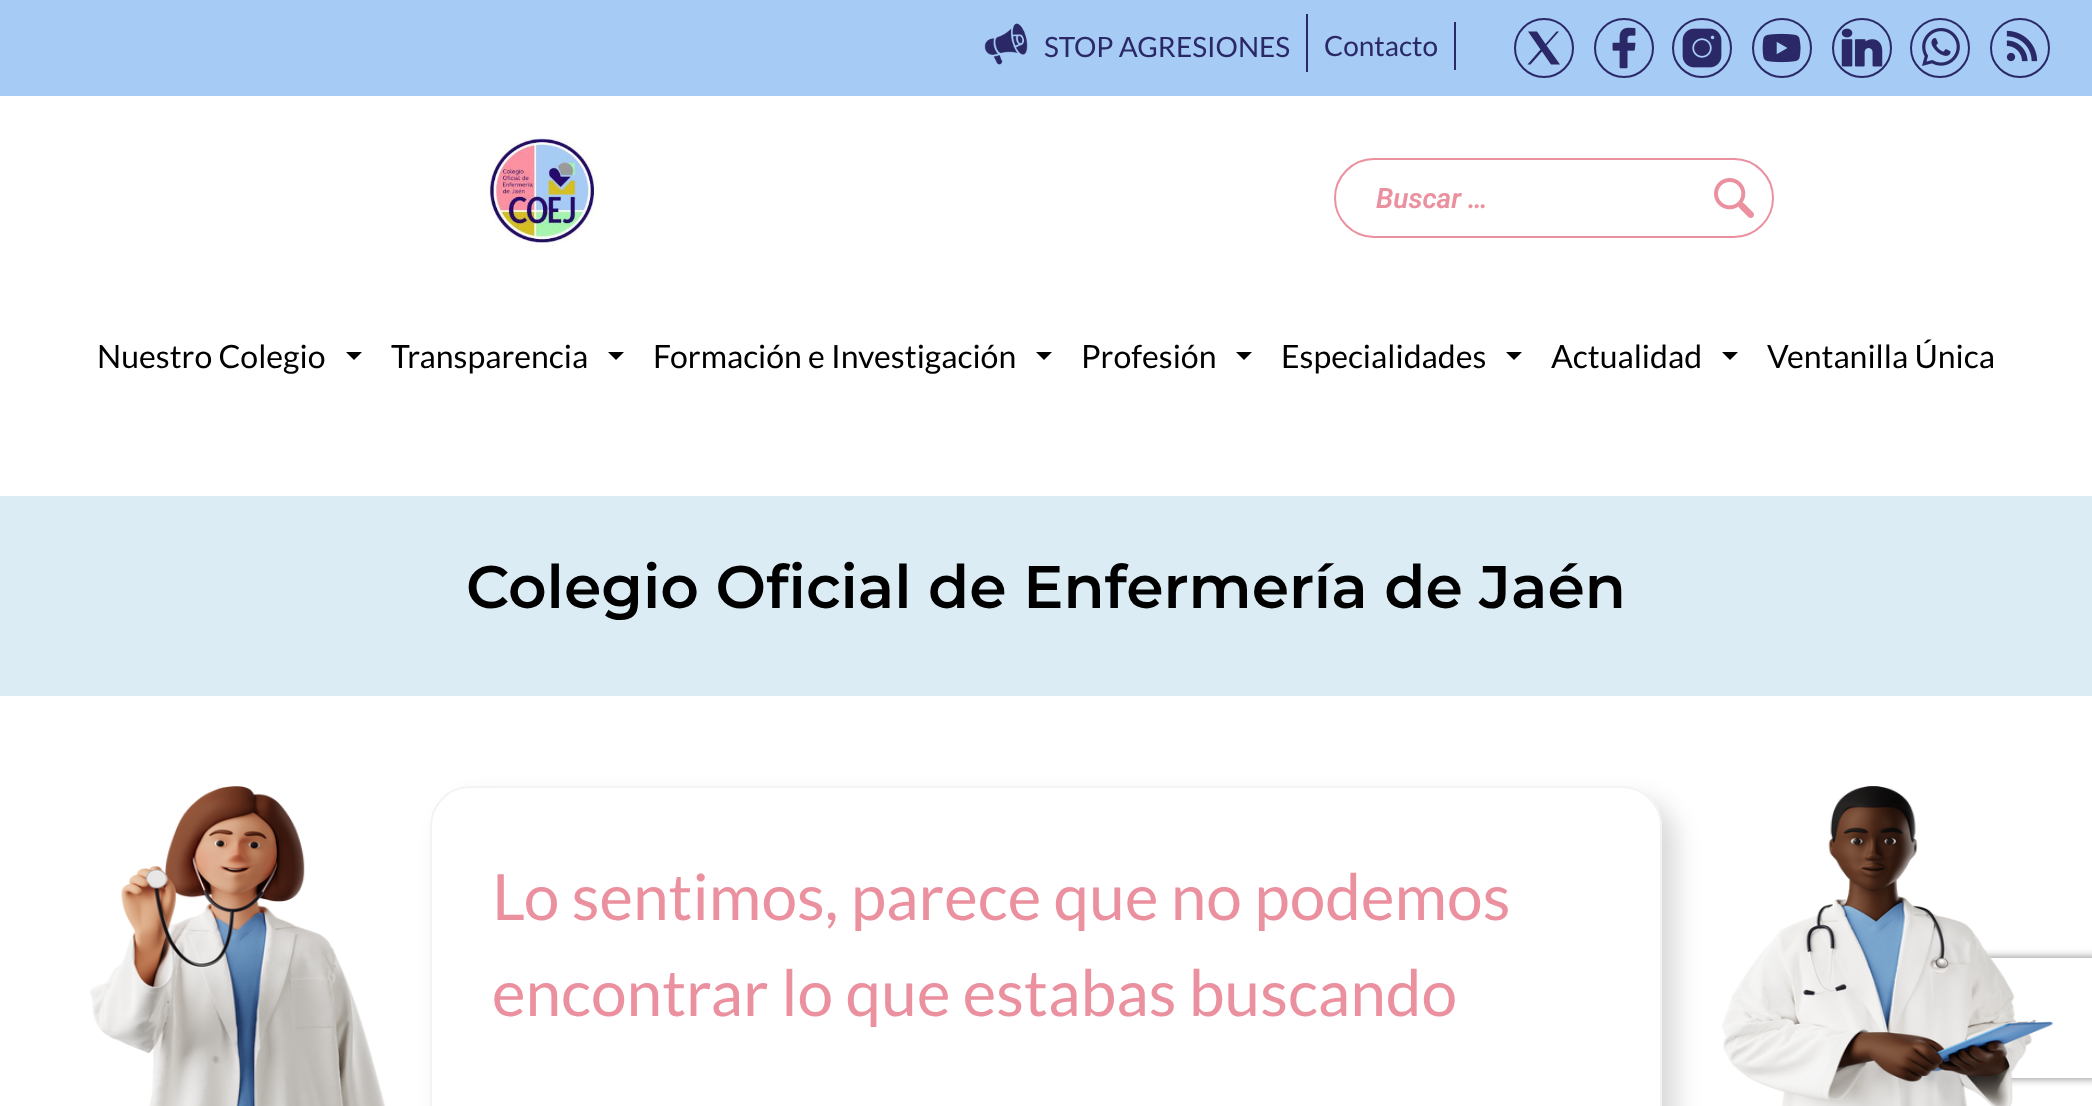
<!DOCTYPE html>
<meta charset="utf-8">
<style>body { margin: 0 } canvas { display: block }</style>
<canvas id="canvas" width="2092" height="1106"></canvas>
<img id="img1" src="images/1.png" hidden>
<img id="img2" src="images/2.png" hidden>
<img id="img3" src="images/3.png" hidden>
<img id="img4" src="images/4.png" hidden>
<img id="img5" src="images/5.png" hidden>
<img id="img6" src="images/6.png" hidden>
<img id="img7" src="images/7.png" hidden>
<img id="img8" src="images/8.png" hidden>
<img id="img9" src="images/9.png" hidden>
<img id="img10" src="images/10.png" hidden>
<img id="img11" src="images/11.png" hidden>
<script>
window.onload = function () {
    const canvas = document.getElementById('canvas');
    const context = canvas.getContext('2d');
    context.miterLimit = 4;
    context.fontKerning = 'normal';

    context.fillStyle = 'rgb(255, 255, 255)';
    context.fillRect(0, 0, 2092, 1106);
    context.fillStyle = 'rgb(166, 203, 245)';
    context.fillRect(0, 0, 2092, 96);
    context.fillStyle = 'rgb(42, 40, 103)';
    context.fillRect(1306, 14, 2, 58);
    context.drawImage(document.getElementById('img1'), 984, 23, 44, 42);
    context.fillRect(1454, 22, 2, 48);
    context.beginPath();
    context.arc(1544, 48, 29, 0, 2 * Math.PI);
    context.strokeStyle = 'rgb(42, 40, 103)';
    context.lineWidth = 2;
    context.stroke();
    context.beginPath();
    context.moveTo(1528, 31.5);
    context.lineTo(1540.5, 49.5);
    context.lineTo(1527.5, 64.5);
    context.lineTo(1530.5, 64.5);
    context.lineTo(1542, 51.5);
    context.lineTo(1551, 64.5);
    context.lineTo(1560, 64.5);
    context.lineTo(1546.5, 45.5);
    context.lineTo(1559, 31.5);
    context.lineTo(1556.5, 31.5);
    context.lineTo(1545.5, 44);
    context.lineTo(1537, 31.5);
    context.closePath();
    context.fill();
    context.beginPath();
    context.arc(1624, 48, 29, 0, 2 * Math.PI);
    context.stroke();
    context.drawImage(document.getElementById('img2'), 1612, 27, 24, 42);
    context.beginPath();
    context.arc(1702, 48, 29, 0, 2 * Math.PI);
    context.stroke();
    context.drawImage(document.getElementById('img3'), 1682, 28, 40, 40);
    context.beginPath();
    context.arc(1782, 48, 29, 0, 2 * Math.PI);
    context.stroke();
    context.drawImage(document.getElementById('img4'), 1762, 33, 39, 30);
    context.beginPath();
    context.arc(1862, 48, 29, 0, 2 * Math.PI);
    context.stroke();
    context.drawImage(document.getElementById('img5'), 1841, 28, 42, 39);
    context.beginPath();
    context.arc(1940, 48, 29, 0, 2 * Math.PI);
    context.stroke();
    context.drawImage(document.getElementById('img6'), 1922, 28, 38, 38);
    context.beginPath();
    context.arc(2020, 48, 29, 0, 2 * Math.PI);
    context.stroke();
    context.drawImage(document.getElementById('img7'), 2006, 30, 32, 32);
    context.beginPath();
    context.roundRect(1335, 159, 438, 78, 39);
    context.strokeStyle = 'rgb(235, 144, 159)';
    context.stroke();
    context.drawImage(document.getElementById('img8'), 1714, 178, 40, 40);
    context.drawImage(document.getElementById('img9'), 485, 138, 113, 113);
    context.fillStyle = 'rgb(0, 0, 0)';
    context.beginPath();
    context.moveTo(346, 352);
    context.lineTo(362, 352);
    context.lineTo(354, 360);
    context.closePath();
    context.fill();
    context.beginPath();
    context.moveTo(608, 352);
    context.lineTo(624, 352);
    context.lineTo(616, 360);
    context.closePath();
    context.fill();
    context.beginPath();
    context.moveTo(1036, 352);
    context.lineTo(1052, 352);
    context.lineTo(1044, 360);
    context.closePath();
    context.fill();
    context.beginPath();
    context.moveTo(1236, 352);
    context.lineTo(1252, 352);
    context.lineTo(1244, 360);
    context.closePath();
    context.fill();
    context.beginPath();
    context.moveTo(1506, 352);
    context.lineTo(1522, 352);
    context.lineTo(1514, 360);
    context.closePath();
    context.fill();
    context.beginPath();
    context.moveTo(1722, 352);
    context.lineTo(1738, 352);
    context.lineTo(1730, 360);
    context.closePath();
    context.fill();
    context.fillStyle = 'rgb(220, 236, 244)';
    context.fillRect(0, 496, 2092, 200);
    context.drawImage(document.getElementById('img10'), 90, 786, 296, 320);
    context.save();
    context.beginPath();
    context.moveTo(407, 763);
    context.lineTo(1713, 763);
    context.lineTo(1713, 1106);
    context.lineTo(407, 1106);
    context.closePath();
    context.moveTo(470, 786);
    context.lineTo(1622, 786);
    context.bezierCurveTo(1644, 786, 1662, 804, 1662, 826);
    context.lineTo(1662, 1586);
    context.bezierCurveTo(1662, 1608, 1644, 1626, 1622, 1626);
    context.lineTo(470, 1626);
    context.bezierCurveTo(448, 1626, 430, 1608, 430, 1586);
    context.lineTo(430, 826);
    context.bezierCurveTo(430, 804, 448, 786, 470, 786);
    context.closePath();
    context.clip('evenodd');
    context.fillStyle = 'rgba(0, 0, 0, 0.15)';
    context.filter = 'blur(12px)';
    context.beginPath();
    context.roundRect(444, 800, 1232, 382, 40);
    context.fill();
    context.filter = 'none';
    context.restore();
    context.beginPath();
    context.roundRect(431, 787, 1230, 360, 39);
    context.strokeStyle = 'rgb(243, 243, 243)';
    context.stroke();
    context.save();
    context.beginPath();
    context.moveTo(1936, 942);
    context.lineTo(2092, 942);
    context.lineTo(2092, 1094);
    context.lineTo(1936, 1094);
    context.closePath();
    context.moveTo(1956, 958);
    context.lineTo(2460, 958);
    context.bezierCurveTo(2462, 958, 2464, 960, 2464, 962);
    context.lineTo(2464, 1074);
    context.bezierCurveTo(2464, 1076, 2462, 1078, 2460, 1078);
    context.lineTo(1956, 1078);
    context.bezierCurveTo(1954, 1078, 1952, 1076, 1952, 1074);
    context.lineTo(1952, 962);
    context.bezierCurveTo(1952, 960, 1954, 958, 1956, 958);
    context.closePath();
    context.clip('evenodd');
    context.fillStyle = 'rgb(128, 128, 128)';
    context.filter = 'blur(5px)';
    context.beginPath();
    context.roundRect(1952, 958, 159, 120, 4);
    context.fill();
    context.filter = 'none';
    context.restore();
    context.drawImage(document.getElementById('img11'), 1722, 786, 331, 320);
    context.font = '28px Lato';
    context.fillStyle = 'rgb(42, 40, 103)';
    context.fillText('STOP AGRESIONES', 1044, 57);
    context.fillText('Contacto', 1324, 56);
    context.font = 'italic 600 28px Roboto';
    context.fillStyle = 'rgb(235, 144, 159)';
    context.fillText('Buscar …', 1376, 208);
    context.font = '32px Lato';
    context.fillStyle = 'rgb(0, 0, 0)';
    context.fillText('Nuestro Colegio', 97, 368);
    context.fillText('Transparencia', 391, 368);
    context.fillText('Formación e Investigación', 653, 368);
    context.fillText('Profesión', 1081, 368);
    context.fillText('Especialidades', 1281, 368);
    context.fillText('Actualidad', 1551, 368);
    context.fillText('Ventanilla Única', 1767, 368);
    context.font = '600 60px Montserrat';
    context.fillText('Colegio Oficial de Enfermería de Jaén', 466, 608);
    context.font = '64px Lato';
    context.fillStyle = 'rgb(235, 144, 159)';
    context.fillText('Lo sentimos, parece que no podemos', 492, 920);
    context.fillText('encontrar lo que estabas buscando', 492, 1016);
};
</script>
